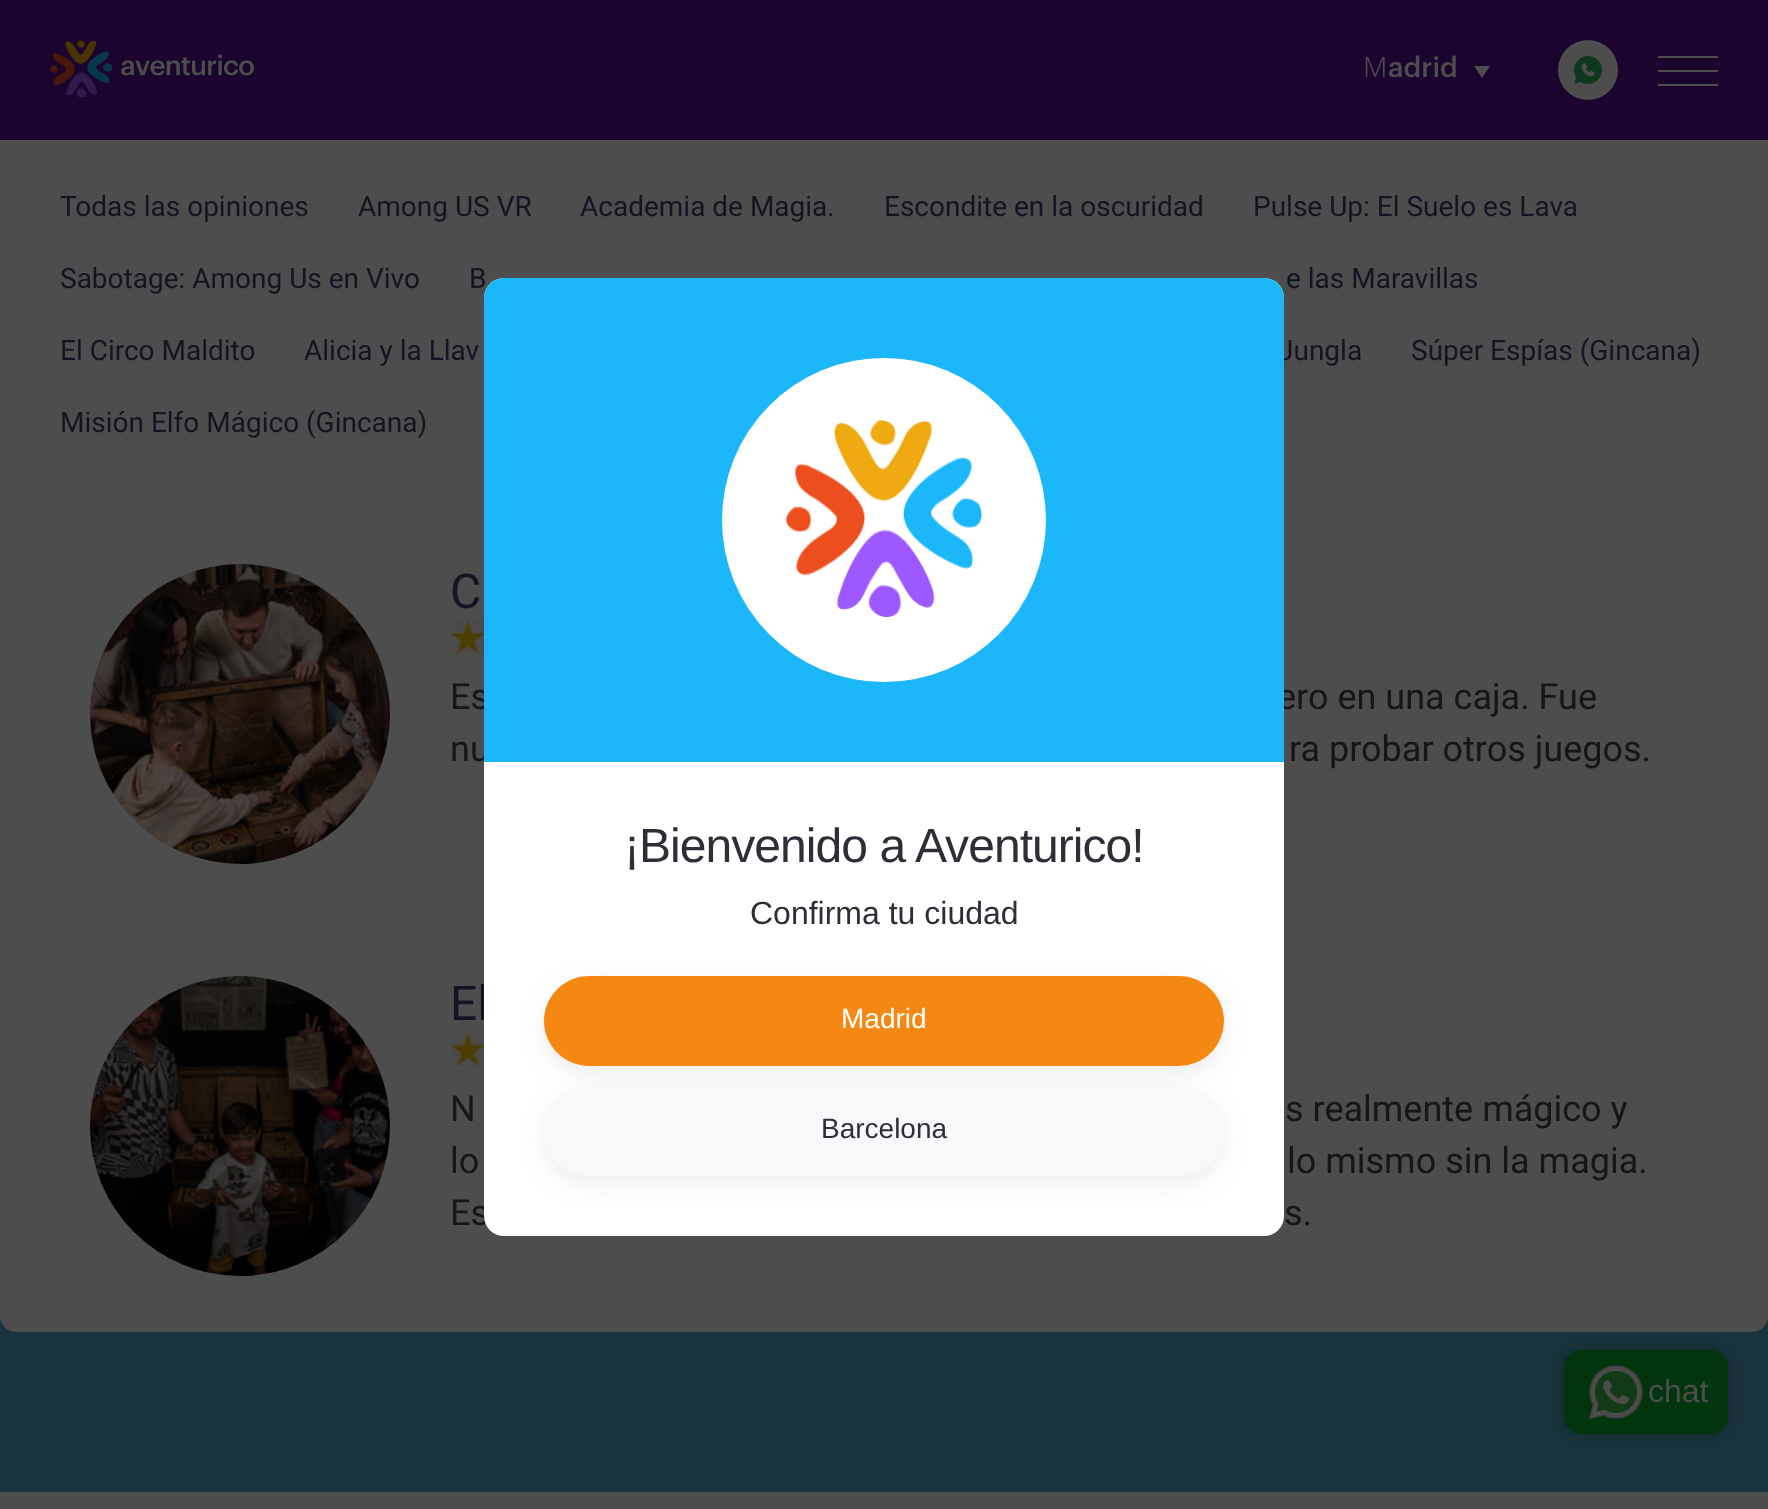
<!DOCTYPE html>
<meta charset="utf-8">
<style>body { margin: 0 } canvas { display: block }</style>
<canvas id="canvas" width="1768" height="1509"></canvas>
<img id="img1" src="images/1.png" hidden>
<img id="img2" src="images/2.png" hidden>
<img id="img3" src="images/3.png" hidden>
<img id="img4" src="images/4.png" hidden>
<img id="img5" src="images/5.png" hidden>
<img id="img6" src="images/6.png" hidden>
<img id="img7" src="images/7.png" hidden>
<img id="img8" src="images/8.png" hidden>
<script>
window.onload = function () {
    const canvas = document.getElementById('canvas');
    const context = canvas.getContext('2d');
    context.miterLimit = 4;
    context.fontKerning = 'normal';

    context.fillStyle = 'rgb(77, 77, 77)';
    context.fillRect(0, 0, 1768, 1509);
    context.fillStyle = 'rgb(27, 5, 47)';
    context.fillRect(0, 0, 1768, 140);
    context.drawImage(document.getElementById('img1'), 50, 40, 204, 58);
    context.fillStyle = 'rgb(77, 77, 77)';
    context.beginPath();
    context.moveTo(1474, 66);
    context.lineTo(1490, 66);
    context.lineTo(1482, 78);
    context.closePath();
    context.fill();
    context.beginPath();
    context.arc(1588, 70, 30, 0, 2 * Math.PI);
    context.fill();
    context.drawImage(document.getElementById('img2'), 1574, 56, 28, 28);
    context.fillRect(1658, 56, 60, 2);
    context.fillRect(1658, 70, 60, 2);
    context.fillRect(1658, 84, 60, 2);
    context.fillStyle = 'rgb(25, 51, 60)';
    context.fillRect(0, 1316, 1768, 176);
    context.fillStyle = 'rgba(0, 0, 0, 0.25)';
    context.filter = 'blur(5px)';
    context.beginPath();
    context.roundRect(1564, 1350, 164, 84, 18);
    context.fill();
    context.filter = 'none';
    context.fillStyle = 'rgb(0, 53, 14)';
    context.beginPath();
    context.roundRect(1564, 1350, 164, 84, 18);
    context.fill();
    context.drawImage(document.getElementById('img3'), 1589, 1365, 54, 55);
    context.fillStyle = 'rgb(77, 77, 77)';
    context.beginPath();
    context.roundRect(0, 508, 1768, 824, [0, 0, 16, 16]);
    context.fill();
    context.drawImage(document.getElementById('img4'), 90, 564, 300, 300);
    context.drawImage(document.getElementById('img5'), 450, 620, 34, 34);
    context.drawImage(document.getElementById('img6'), 90, 976, 300, 300);
    context.drawImage(document.getElementById('img7'), 450, 1032, 34, 34);
    context.font = '300 28px Noto Sans';
    context.fillText('M', 1363, 77);
    context.font = '500 28px Graphik';
    context.fillText('adrid', 1388, 77);
    context.font = '32px Liberation Sans';
    context.fillText('chat', 1648, 1402);
    context.font = '28px Roboto';
    context.fillStyle = 'rgb(20, 21, 35)';
    context.fillText('Todas las opiniones', 60, 216);
    context.fillText('Among US VR', 358, 216);
    context.fillText('Academia de Magia.', 580, 216);
    context.fillText('Escondite en la oscuridad', 884, 216);
    context.fillText('Pulse Up: El Suelo es Lava', 1253, 216);
    context.fillText('Sabotage: Among Us en Vivo', 60, 288);
    context.fillText('B', 469, 288);
    context.fillText('e las Maravillas', 1286, 288);
    context.fillText('El Circo Maldito', 60, 360);
    context.fillText('Alicia y la Llav', 304, 360);
    context.fillText('Jungla', 1278, 360);
    context.fillText('Súper Espías (Gincana)', 1411, 360);
    context.fillText('Misión Elfo Mágico (Gincana)', 60, 432);
    context.font = '48px Roboto';
    context.fillText('C', 450, 608);
    context.font = '36px Roboto';
    context.fillStyle = 'rgb(22, 22, 22)';
    context.fillText('Es', 450, 709);
    context.fillText('ero en una caja. Fue', 1277, 709);
    context.fillText('nu', 450, 761);
    context.fillText('ra probar otros juegos.', 1289, 761);
    context.font = '48px Roboto';
    context.fillStyle = 'rgb(20, 21, 35)';
    context.fillText('El', 450, 1020);
    context.font = '36px Roboto';
    context.fillStyle = 'rgb(22, 22, 22)';
    context.fillText('N', 450, 1121);
    context.fillText('s realmente mágico y', 1285, 1121);
    context.fillText('lo', 450, 1173);
    context.fillText('lo mismo sin la magia.', 1287, 1173);
    context.fillText('Es', 450, 1225);
    context.fillText('s.', 1284, 1225);
    context.fillStyle = 'rgb(255, 255, 255)';
    context.beginPath();
    context.roundRect(484, 278, 800, 958, 20);
    context.fill();
    context.fillStyle = 'rgb(27, 183, 249)';
    context.beginPath();
    context.roundRect(484, 278, 800, 484, [20, 20, 0, 0]);
    context.fill();
    context.fillStyle = 'rgb(255, 255, 255)';
    context.beginPath();
    context.arc(884, 520, 162, 0, 2 * Math.PI);
    context.fill();
    context.drawImage(document.getElementById('img8'), 786, 420, 196, 197);
    context.letterSpacing = '-0.95px';
    context.font = '48px Liberation Sans';
    context.fillStyle = 'rgb(45, 46, 54)';
    context.fillText('¡Bienvenido a Aventurico!', 624, 862);
    context.letterSpacing = '0px';
    context.font = '32px Liberation Sans';
    context.fillText('Confirma tu ciudad', 750, 924);
    context.fillStyle = 'rgba(181, 181, 181, 0.25)';
    context.filter = 'blur(12px)';
    context.beginPath();
    context.roundRect(544, 984, 680, 90, 45);
    context.fill();
    context.filter = 'none';
    context.fillStyle = 'rgb(245, 136, 18)';
    context.beginPath();
    context.roundRect(544, 976, 680, 90, 45);
    context.fill();
    context.font = '28px Liberation Sans';
    context.fillStyle = 'rgb(255, 255, 255)';
    context.fillText('Madrid', 841, 1028);
    context.fillStyle = 'rgba(181, 181, 181, 0.25)';
    context.filter = 'blur(12px)';
    context.beginPath();
    context.roundRect(544, 1094, 680, 90, 45);
    context.fill();
    context.filter = 'none';
    context.fillStyle = 'rgb(247, 248, 250)';
    context.beginPath();
    context.roundRect(544, 1086, 680, 90, 45);
    context.fill();
    context.fillStyle = 'rgb(45, 46, 54)';
    context.fillText('Barcelona', 821, 1138);
};
</script>
